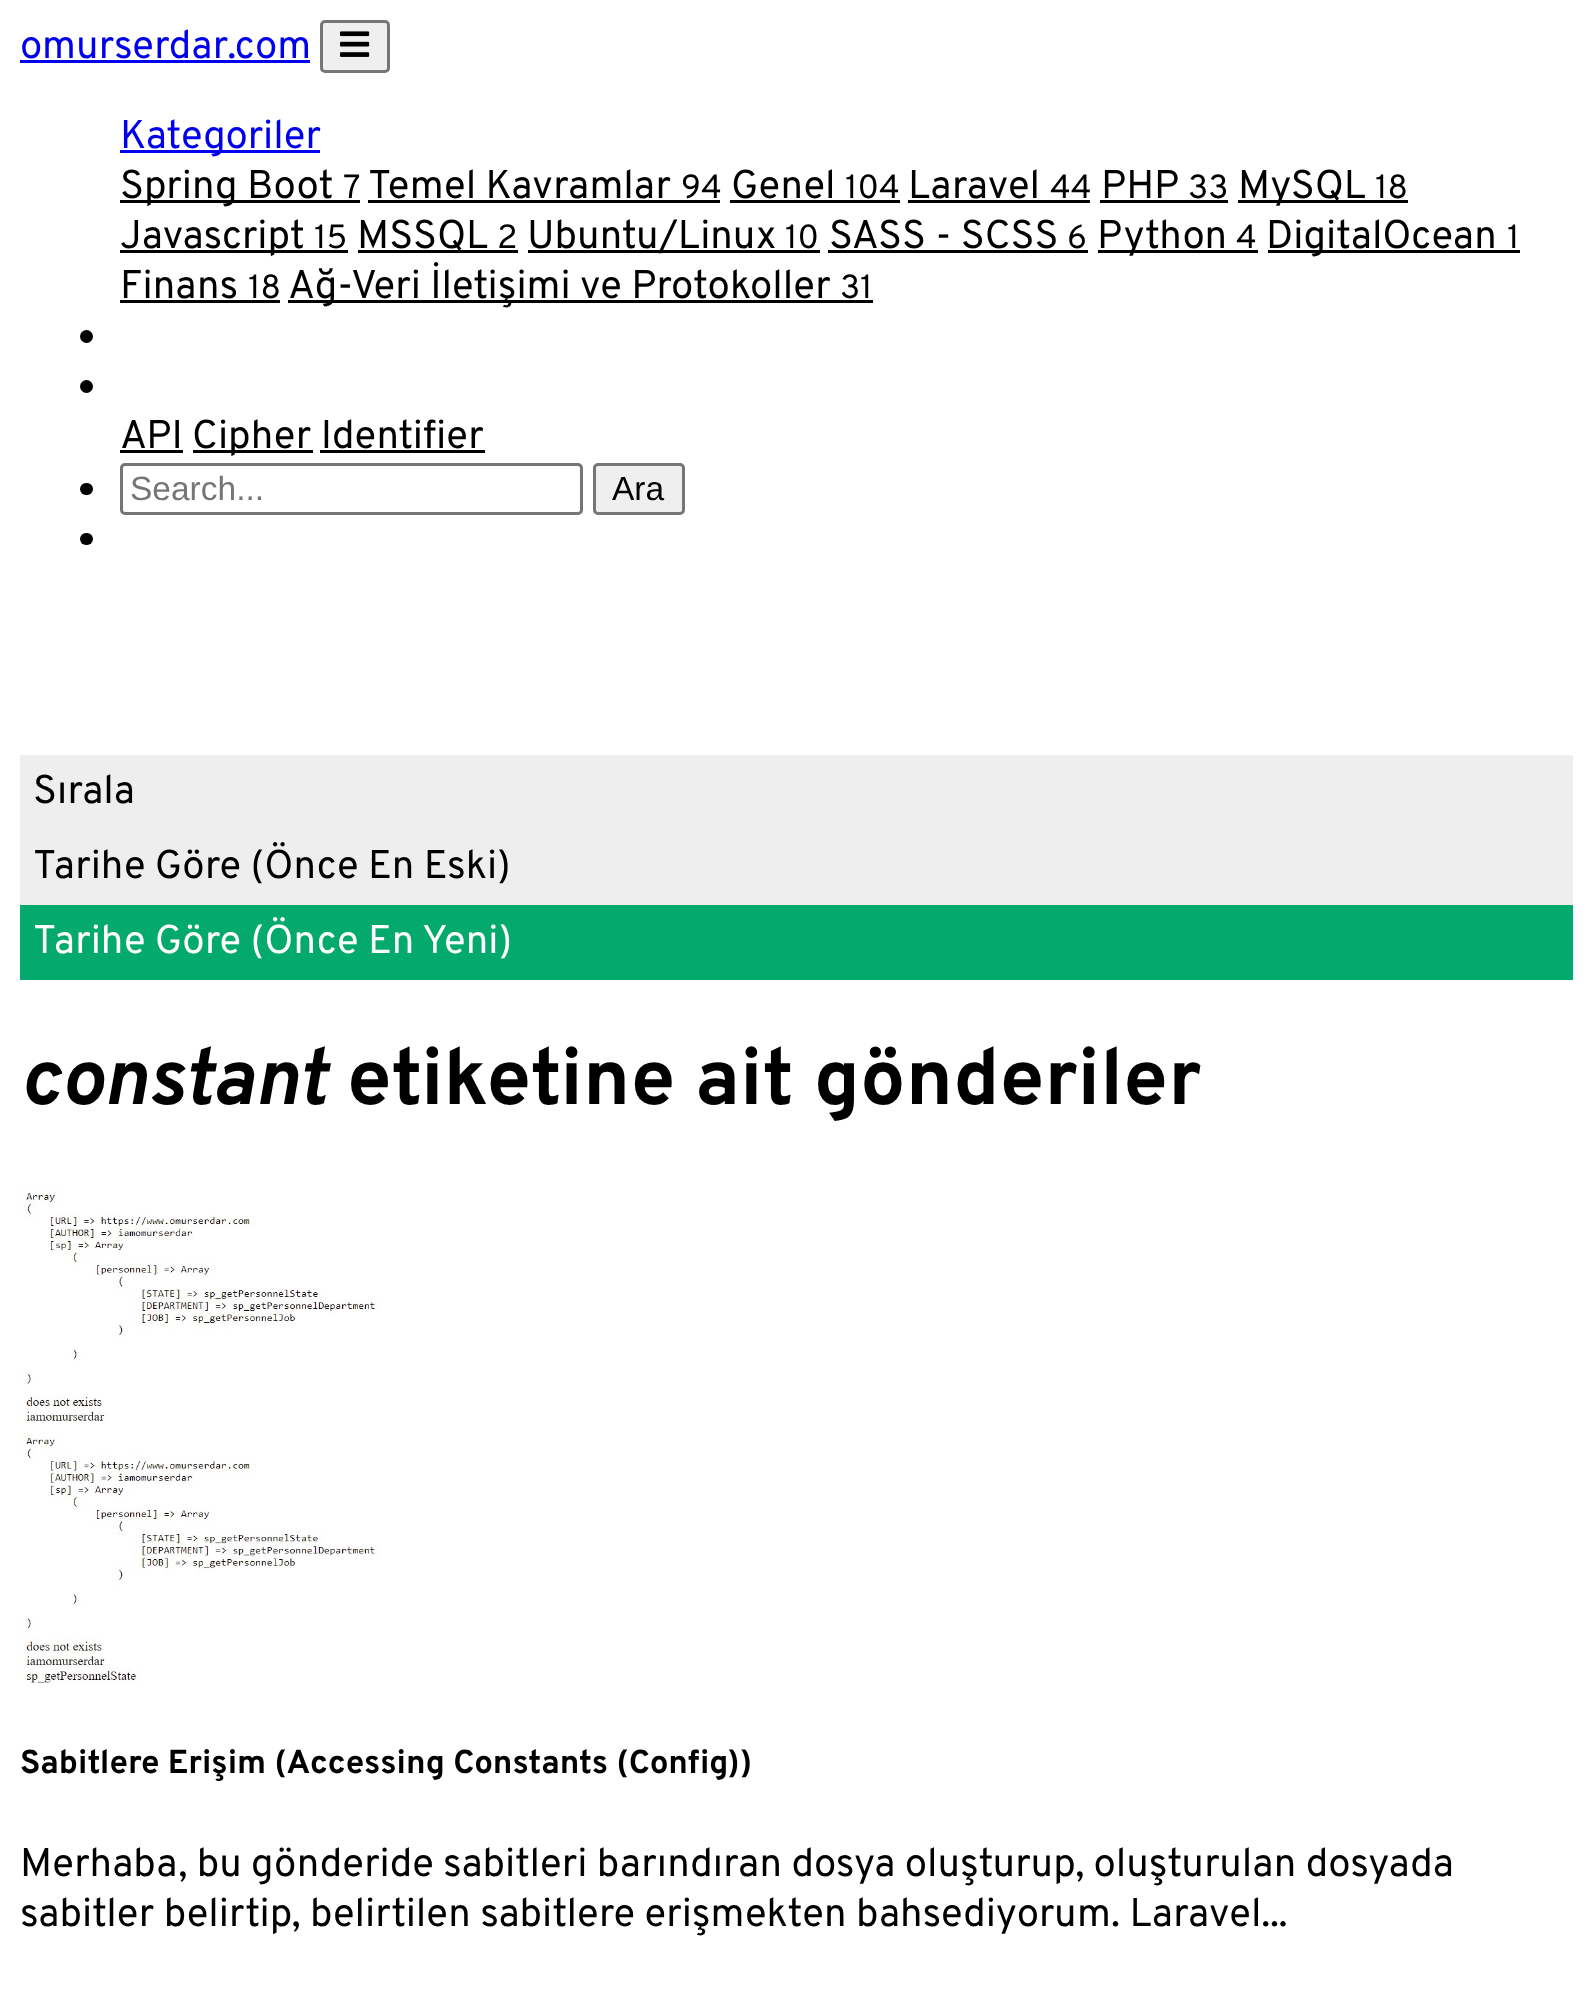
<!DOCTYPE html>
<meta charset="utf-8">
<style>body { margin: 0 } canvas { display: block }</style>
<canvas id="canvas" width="1591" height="1994"></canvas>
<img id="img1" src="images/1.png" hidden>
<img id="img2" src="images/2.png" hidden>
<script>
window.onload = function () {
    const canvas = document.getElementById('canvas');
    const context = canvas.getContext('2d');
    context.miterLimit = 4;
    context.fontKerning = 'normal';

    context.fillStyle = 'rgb(255, 255, 255)';
    context.fillRect(0, 0, 1591, 1994);
    context.fillStyle = 'rgb(0, 0, 238)';
    context.fillRect(20, 60, 290, 3);
    context.fillStyle = 'rgb(239, 239, 239)';
    context.beginPath();
    context.roundRect(321.5, 21.5, 67, 50, 3.5);
    context.fill();
    context.strokeStyle = 'rgb(118, 118, 118)';
    context.lineWidth = 3;
    context.stroke();
    context.drawImage(document.getElementById('img1'), 340, 31, 30, 26);
    context.fillStyle = 'rgb(0, 0, 238)';
    context.fillRect(120, 150, 200, 3);
    context.fillStyle = 'rgb(0, 0, 0)';
    context.fillRect(120, 200, 240, 3);
    context.fillRect(368, 200, 352, 3);
    context.fillRect(730, 200, 170, 3);
    context.fillRect(908, 200, 182, 3);
    context.fillRect(1100, 200, 128, 3);
    context.fillRect(1238, 200, 170, 3);
    context.fillRect(120, 250, 228, 3);
    context.fillRect(358, 250, 160, 3);
    context.fillRect(528, 250, 292, 3);
    context.fillRect(828, 250, 260, 3);
    context.fillRect(1098, 250, 160, 3);
    context.fillRect(1268, 250, 252, 3);
    context.fillRect(120, 300, 160, 3);
    context.fillRect(288, 300, 585, 3);
    context.beginPath();
    context.arc(86.5, 336.5, 6.5, 0, 2 * Math.PI);
    context.fill();
    context.beginPath();
    context.arc(86.5, 386.5, 6.5, 0, 2 * Math.PI);
    context.fill();
    context.fillRect(120, 450, 63, 3);
    context.fillRect(193, 450, 120, 3);
    context.fillRect(320, 450, 165, 3);
    context.beginPath();
    context.roundRect(80, 483, 13, 12, 6);
    context.fill();
    context.beginPath();
    context.roundRect(121.5, 464.5, 460, 49, 3.5);
    context.stroke();
    context.fillStyle = 'rgb(239, 239, 239)';
    context.beginPath();
    context.roundRect(594.5, 464.5, 89, 49, 3.5);
    context.fill();
    context.stroke();
    context.fillStyle = 'rgb(0, 0, 0)';
    context.beginPath();
    context.roundRect(80, 533, 13, 12, 6);
    context.fill();
    context.fillStyle = 'rgb(238, 238, 238)';
    context.fillRect(20, 755, 1553, 150);
    context.fillStyle = 'rgb(4, 170, 109)';
    context.fillRect(20, 905, 1553, 75);
    context.drawImage(document.getElementById('img2'), 20, 1187, 359, 501);
    context.font = '40px Overpass';
    context.fillStyle = 'rgb(0, 0, 238)';
    context.fillText('omurserdar.com', 20, 58);
    context.fillText('Kategoriler', 120, 148);
    context.fillStyle = 'rgb(0, 0, 0)';
    context.fillText('Spring Boot', 120, 198);
    context.font = '33.5px Overpass';
    context.fillText('7', 343, 198);
    context.font = '40px Overpass';
    context.fillText('Temel Kavramlar', 368, 198);
    context.font = '33.5px Overpass';
    context.fillText('94', 681, 198);
    context.font = '40px Overpass';
    context.fillText('Genel', 731, 198);
    context.font = '33.5px Overpass';
    context.fillText('104', 845, 198);
    context.font = '40px Overpass';
    context.fillText('Laravel', 908, 198);
    context.font = '33.5px Overpass';
    context.fillText('44', 1050, 198);
    context.font = '40px Overpass';
    context.fillText('PHP', 1101, 198);
    context.font = '33.5px Overpass';
    context.fillText('33', 1188, 198);
    context.font = '40px Overpass';
    context.fillText('MySQL', 1238, 198);
    context.font = '33.5px Overpass';
    context.fillText('18', 1375, 198);
    context.font = '40px Overpass';
    context.fillText('Javascript', 120, 248);
    context.font = '33.5px Overpass';
    context.fillText('15', 314, 248);
    context.font = '40px Overpass';
    context.fillText('MSSQL', 357, 248);
    context.font = '33.5px Overpass';
    context.fillText('2', 497, 248);
    context.font = '40px Overpass';
    context.fillText('Ubuntu/Linux', 527, 248);
    context.font = '33.5px Overpass';
    context.fillText('10', 785, 248);
    context.font = '40px Overpass';
    context.fillText('SASS - SCSS', 829, 248);
    context.font = '33.5px Overpass';
    context.fillText('6', 1067, 248);
    context.font = '40px Overpass';
    context.fillText('Python', 1097, 248);
    context.font = '33.5px Overpass';
    context.fillText('4', 1236, 248);
    context.font = '40px Overpass';
    context.fillText('DigitalOcean', 1266, 248);
    context.font = '33.5px Overpass';
    context.fillText('1', 1507, 248);
    context.font = '40px Overpass';
    context.fillText('Finans', 120, 298);
    context.font = '33.5px Overpass';
    context.fillText('18', 248, 298);
    context.font = '40px Overpass';
    context.fillText('Ağ-Veri İletişimi ve Protokoller', 288, 298);
    context.font = '33.5px Overpass';
    context.fillText('31', 840, 298);
    context.font = '40px Overpass';
    context.fillText('API', 120, 448);
    context.fillText('Cipher Identifier', 192, 448);
    context.font = '33.5px Liberation Sans';
    context.fillStyle = 'rgb(117, 117, 117)';
    context.fillText('Search...', 130, 500);
    context.fillStyle = 'rgb(0, 0, 0)';
    context.fillText('Ara', 612, 500);
    context.font = '40px Overpass';
    context.fillText('Sırala', 33, 803);
    context.fillText('Tarihe Göre (Önce En Eski)', 33, 878);
    context.fillStyle = 'rgb(255, 255, 255)';
    context.fillText('Tarihe Göre (Önce En Yeni)', 33, 953);
    context.font = 'italic bold 80px Overpass';
    context.fillStyle = 'rgb(0, 0, 0)';
    context.fillText('constant', 20, 1104);
    context.font = 'bold 80px Overpass';
    context.fillText('etiketine ait gönderiler', 347, 1104);
    context.font = 'bold 33.2px Overpass';
    context.fillText('Sabitlere Erişim (Accessing Constants (Config))', 20, 1773);
    context.font = '40px Overpass';
    context.fillText('Merhaba, bu gönderide sabitleri barındıran dosya oluşturup, oluşturulan dosyada', 20, 1876);
    context.fillText('sabitler belirtip, belirtilen sabitlere erişmekten bahsediyorum. Laravel...', 20, 1926);
};
</script>
